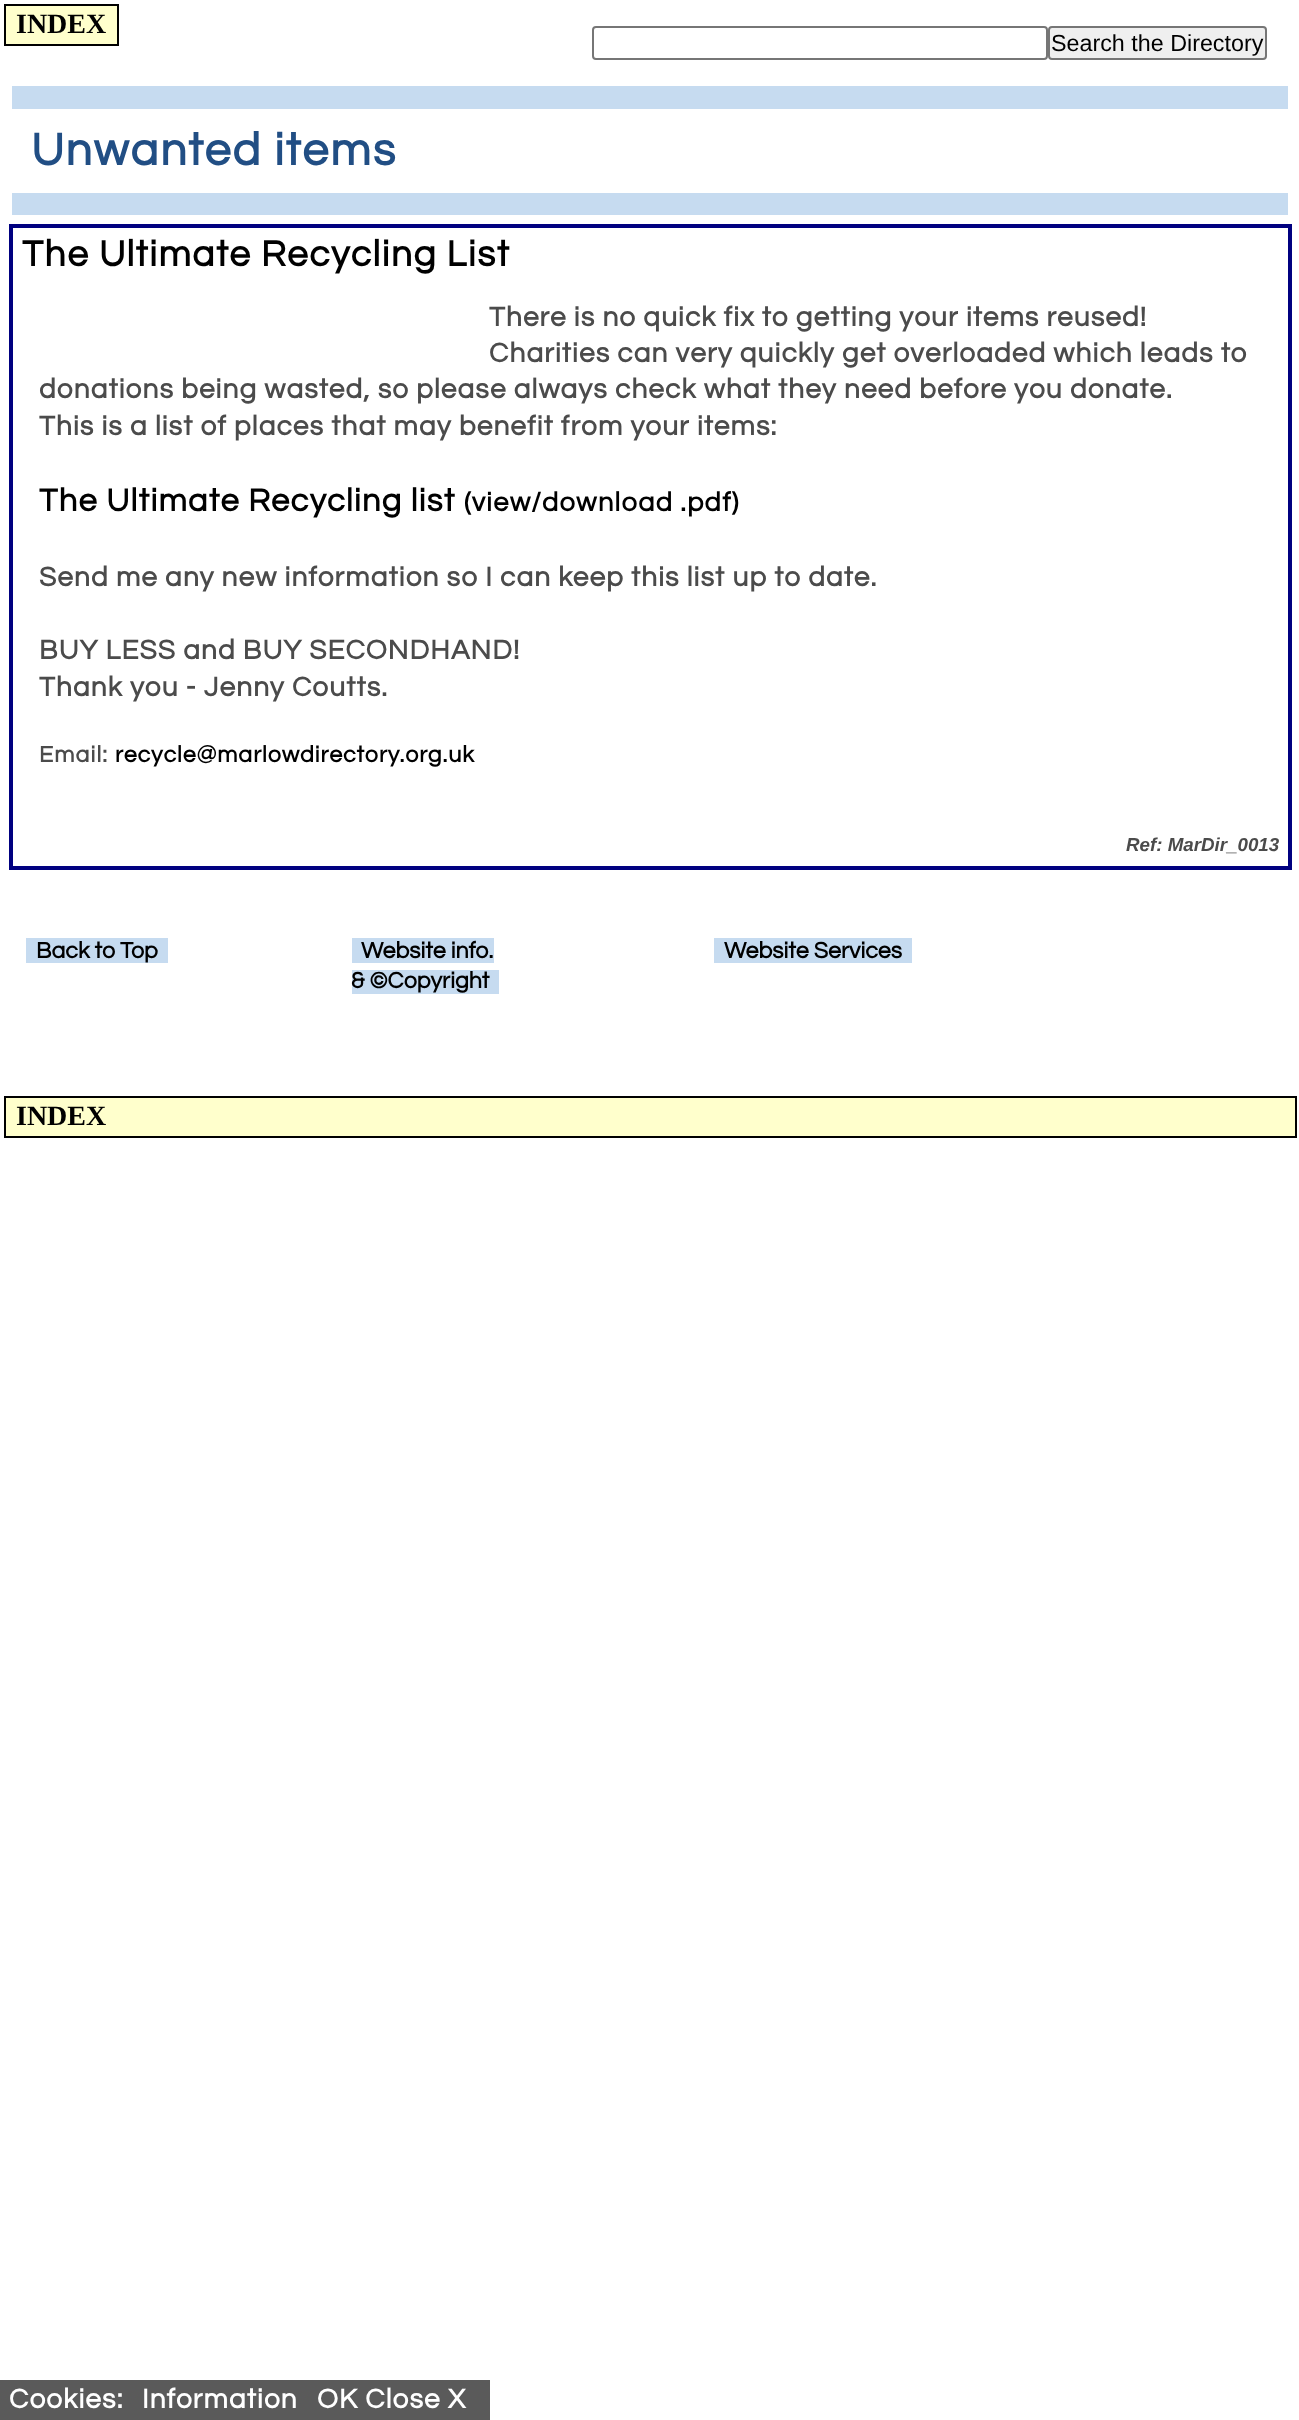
<!DOCTYPE html>
<meta charset="utf-8">
<style>body { margin: 0 } canvas { display: block }</style>
<canvas id="canvas" width="1299" height="2420"></canvas>
<script>
window.onload = function () {
    const canvas = document.getElementById('canvas');
    const context = canvas.getContext('2d');
    context.miterLimit = 4;
    context.fontKerning = 'normal';

    context.fillStyle = 'rgb(255, 255, 255)';
    context.fillRect(0, 0, 1299, 2420);
    context.fillStyle = 'rgb(255, 255, 204)';
    context.beginPath();
    context.rect(5, 5, 113, 40);
    context.fill();
    context.strokeStyle = 'rgb(0, 0, 0)';
    context.lineWidth = 2;
    context.stroke();
    context.beginPath();
    context.roundRect(593, 27, 454, 32, 3);
    context.strokeStyle = 'rgb(118, 118, 118)';
    context.stroke();
    context.fillStyle = 'rgb(239, 239, 239)';
    context.beginPath();
    context.roundRect(1049, 27, 217, 32, 3);
    context.fill();
    context.stroke();
    context.fillStyle = 'rgb(198, 219, 240)';
    context.fillRect(12, 86, 1276, 23);
    context.fillRect(12, 193, 1276, 22);
    context.strokeStyle = 'rgb(0, 0, 128)';
    context.lineWidth = 4;
    context.strokeRect(11, 226, 1279, 642);
    context.fillRect(26, 938, 142, 25);
    context.fillRect(352, 938, 142, 25);
    context.fillRect(352, 970, 147, 24);
    context.fillRect(714, 938, 198, 25);
    context.fillStyle = 'rgb(255, 255, 204)';
    context.beginPath();
    context.rect(5, 1097, 1291, 40);
    context.fill();
    context.strokeStyle = 'rgb(0, 0, 0)';
    context.lineWidth = 2;
    context.stroke();
    context.fillStyle = 'rgb(90, 90, 90)';
    context.fillRect(0, 2380, 490, 40);
    context.font = 'bold 28px Liberation Serif';
    context.fillStyle = 'rgb(0, 0, 0)';
    context.fillText('INDEX', 16, 33);
    context.font = '23.3px Liberation Sans';
    context.fillText('Search the Directory', 1051, 51);
    context.letterSpacing = '1.9px';
    context.font = 'bold 46.75px Questrial';
    context.fillStyle = 'rgb(33, 78, 132)';
    context.fillText('Unwanted items', 31, 165);
    context.letterSpacing = '1.5px';
    context.font = 'bold 37.3px Questrial';
    context.fillStyle = 'rgb(0, 0, 0)';
    context.fillText('The Ultimate Recycling List', 22, 266);
    context.letterSpacing = '1.12px';
    context.font = 'bold 28px Questrial';
    context.fillStyle = 'rgb(75, 75, 75)';
    context.fillText('There is no quick fix to getting your items reused!', 489, 326);
    context.fillText('Charities can very quickly get overloaded which leads to', 489, 362);
    context.fillText('donations being wasted, so please always check what they need before you donate.', 39, 398);
    context.fillText('This is a list of places that may benefit from your items:', 39, 435);
    context.letterSpacing = '1.3px';
    context.font = 'bold 32.7px Questrial';
    context.fillStyle = 'rgb(0, 0, 0)';
    context.fillText('The Ultimate Recycling list', 39, 511);
    context.font = 'bold 27.25px Questrial';
    context.fillText('(view/download .pdf)', 464, 511);
    context.letterSpacing = '1.12px';
    context.font = 'bold 28px Questrial';
    context.fillStyle = 'rgb(75, 75, 75)';
    context.fillText('Send me any new information so I can keep this list up to date.', 39, 586);
    context.fillText('BUY LESS and BUY SECONDHAND!', 39, 659);
    context.fillText('Thank you - Jenny Coutts.', 39, 696);
    context.font = 'bold 23.3px Questrial';
    context.fillText('Email:', 39, 762);
    context.letterSpacing = '0.9px';
    context.fillStyle = 'rgb(0, 0, 0)';
    context.fillText('recycle@marlowdirectory.org.uk', 115, 762);
    context.letterSpacing = '0px';
    context.font = 'italic bold 18.75px Liberation Sans';
    context.fillStyle = 'rgb(75, 75, 75)';
    context.fillText('Ref: MarDir_0013', 1126, 851);
    context.font = 'bold 23.3px Questrial';
    context.fillStyle = 'rgb(0, 0, 0)';
    context.fillText('Back to Top', 36, 958);
    context.fillText('Website info.', 361, 958);
    context.fillText('& ©Copyright', 351, 988);
    context.fillText('Website Services', 724, 958);
    context.font = 'bold 28px Liberation Serif';
    context.fillText('INDEX', 16, 1125);
    context.letterSpacing = '1.12px';
    context.font = 'bold 28px Questrial';
    context.fillStyle = 'rgb(255, 255, 255)';
    context.fillText('Cookies:', 9, 2408);
    context.fillText('Information', 142, 2408);
    context.fillText('OK Close X', 317, 2408);
};
</script>
